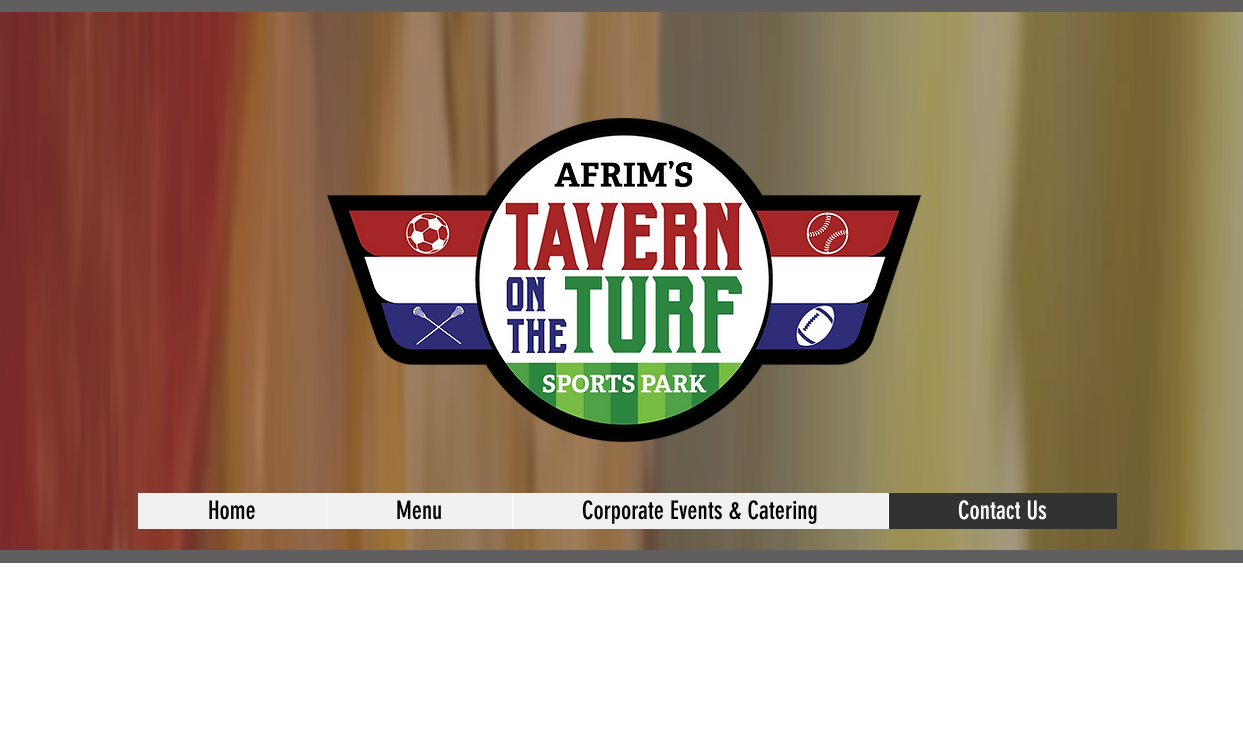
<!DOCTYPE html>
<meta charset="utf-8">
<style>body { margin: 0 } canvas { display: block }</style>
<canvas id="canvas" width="1243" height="745"></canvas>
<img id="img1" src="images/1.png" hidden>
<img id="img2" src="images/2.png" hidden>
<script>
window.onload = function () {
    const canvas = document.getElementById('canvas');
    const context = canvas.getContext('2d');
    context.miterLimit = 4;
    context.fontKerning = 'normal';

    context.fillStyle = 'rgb(96, 94, 94)';
    context.fillRect(0, 0, 1243, 745);
    context.drawImage(document.getElementById('img1'), 0, 12, 1243, 538);
    context.drawImage(document.getElementById('img2'), 327, 118, 594, 324);
    context.fillStyle = 'rgb(241, 241, 241)';
    context.fillRect(138, 493, 750, 36);
    context.fillStyle = 'rgb(255, 255, 255)';
    context.fillRect(326, 493, 1, 36);
    context.fillRect(512, 493, 1, 36);
    context.fillStyle = 'rgb(50, 50, 50)';
    context.fillRect(889, 493, 228, 36);
    context.fillStyle = 'rgb(255, 255, 255)';
    context.fillRect(888, 493, 1, 36);
    context.fillRect(0, 563, 1243, 182);
    context.font = '25px "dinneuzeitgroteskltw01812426"';
    context.fillStyle = 'rgb(0, 0, 0)';
    context.fillText('Home', 208, 519);
    context.fillText('Menu', 396, 519);
    context.fillText('Corporate Events & Catering', 582, 519);
    context.fillStyle = 'rgb(255, 255, 255)';
    context.fillText('Contact Us', 958, 519);
};
</script>
